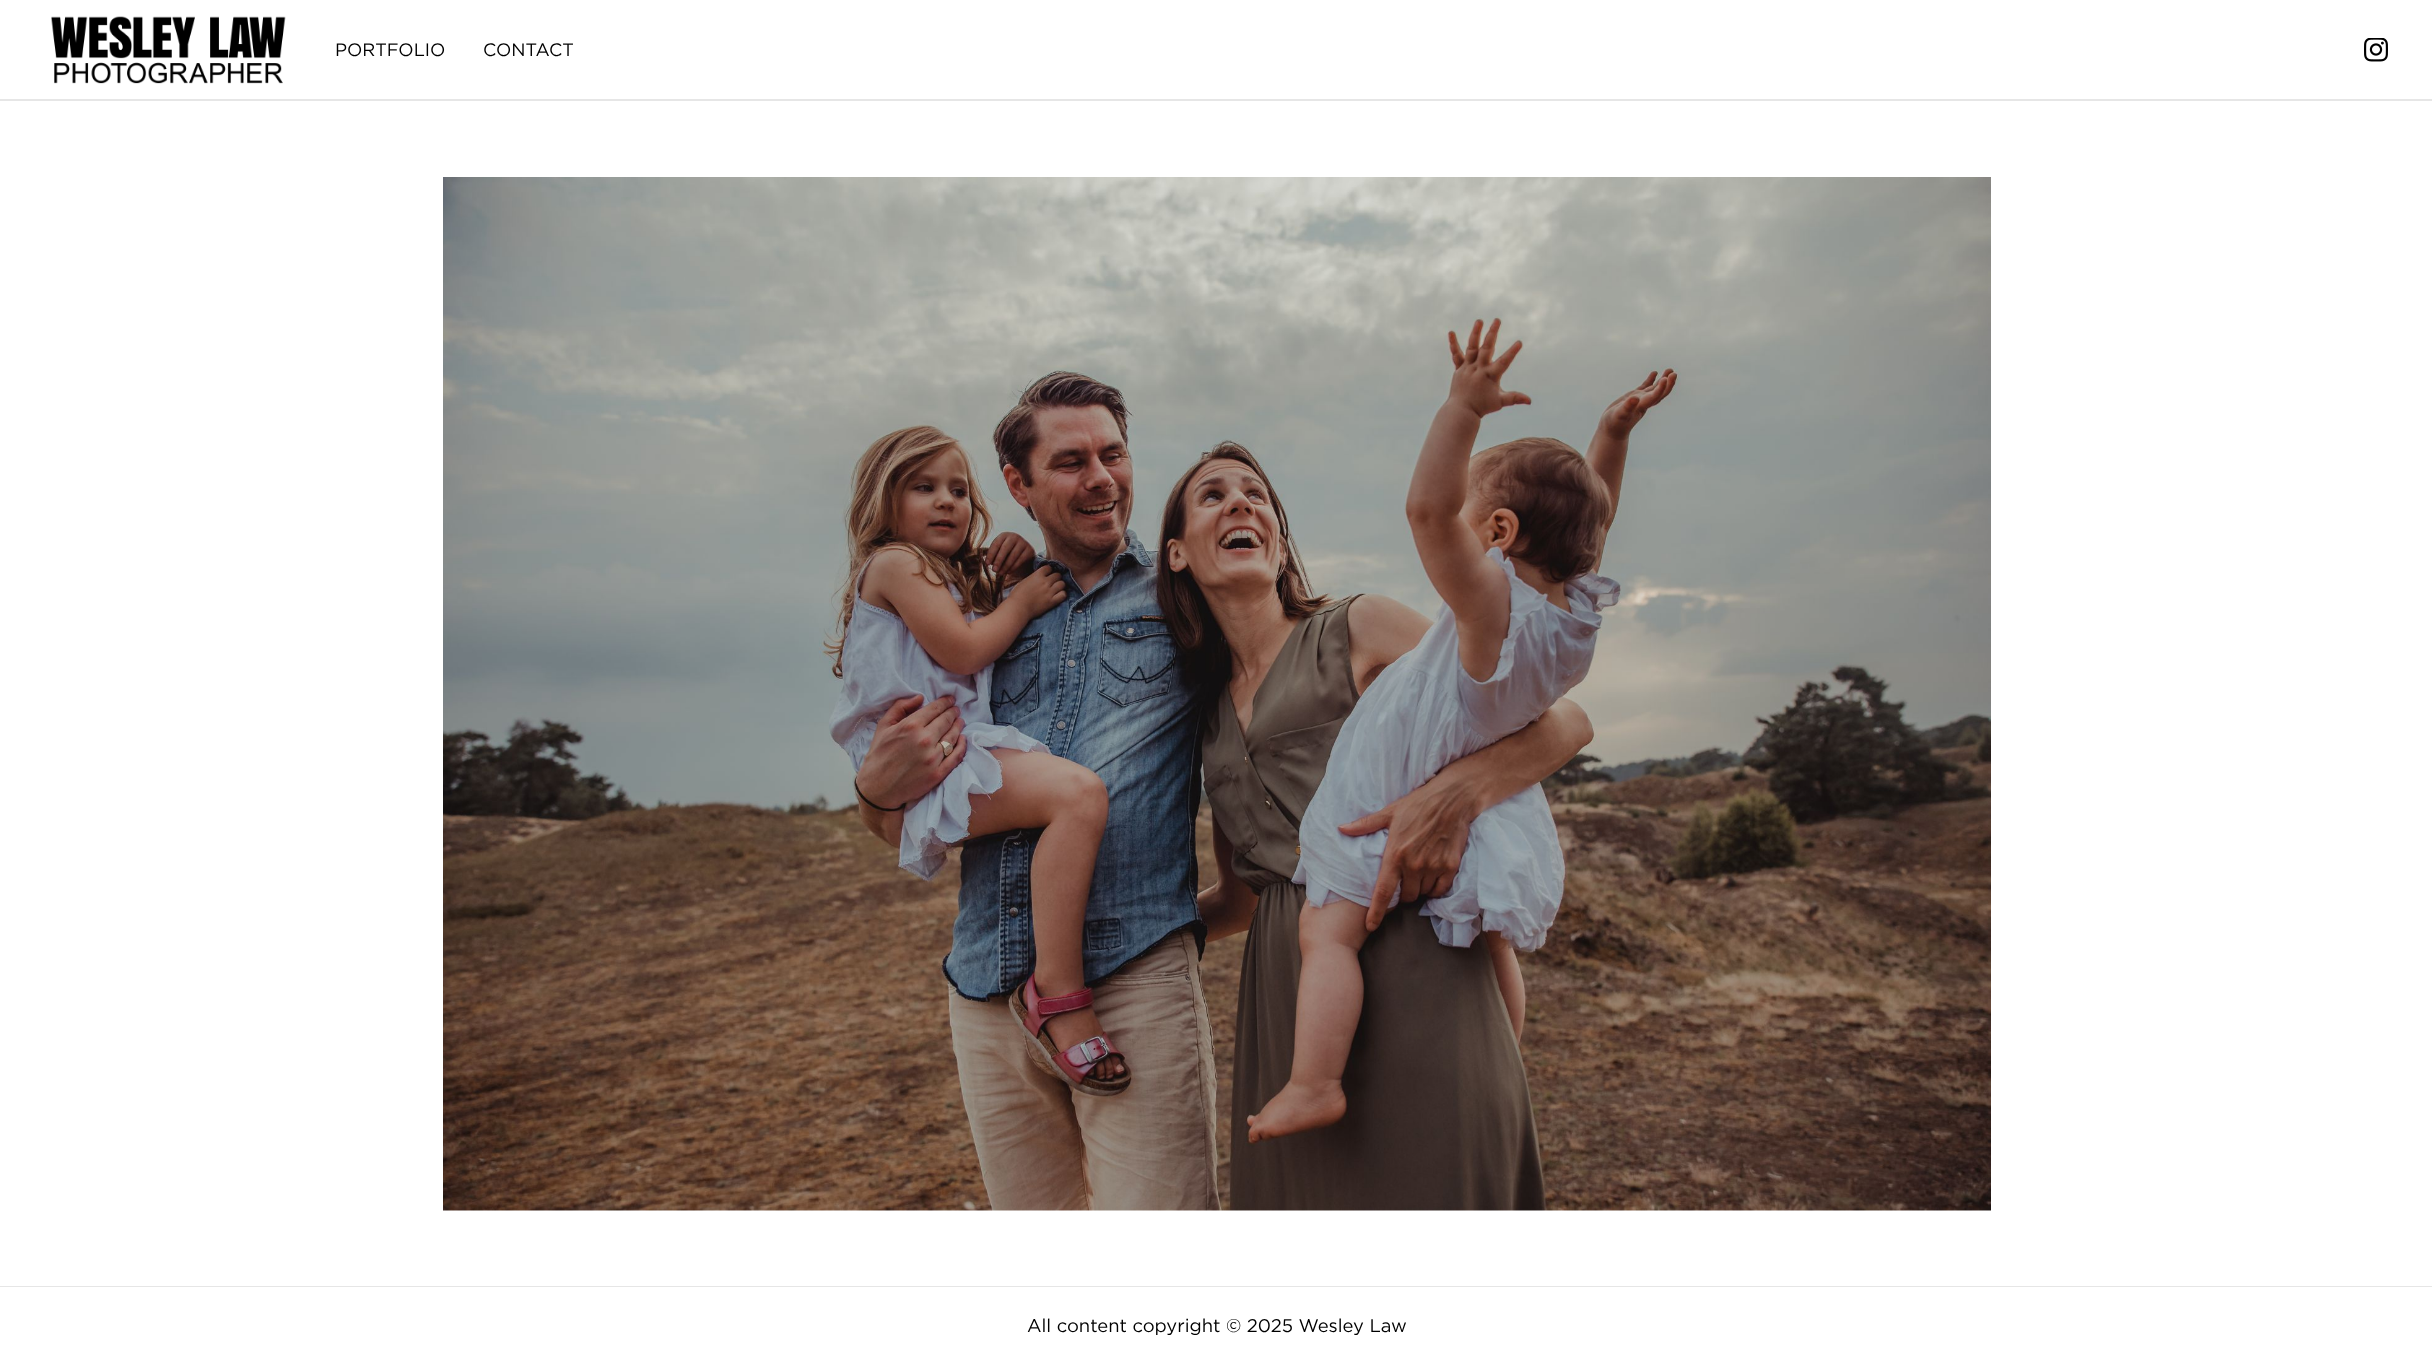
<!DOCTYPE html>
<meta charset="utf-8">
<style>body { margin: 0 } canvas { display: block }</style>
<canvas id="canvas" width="2432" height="1364"></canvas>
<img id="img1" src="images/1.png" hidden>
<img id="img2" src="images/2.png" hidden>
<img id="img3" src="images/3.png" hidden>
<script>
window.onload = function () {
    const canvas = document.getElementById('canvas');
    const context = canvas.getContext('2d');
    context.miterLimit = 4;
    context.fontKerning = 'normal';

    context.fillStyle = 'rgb(255, 255, 255)';
    context.fillRect(0, 0, 2432, 1364);
    context.fillStyle = 'rgb(230, 230, 230)';
    context.fillRect(0, 99, 2432, 2);
    context.drawImage(document.getElementById('img1'), 51, 16, 235, 68);
    context.drawImage(document.getElementById('img2'), 2364, 38, 24, 24);
    context.drawImage(document.getElementById('img3'), 443, 177, 1548, 1034);
    context.fillRect(0, 1286, 2432, 1);
    context.font = '300 18px "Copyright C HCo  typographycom"';
    context.fillStyle = 'rgb(0, 0, 0)';
    context.fillText('PORTFOLIO', 335, 56);
    context.fillText('CONTACT', 483, 56);
    context.font = '300 18.4px "Copyright C HCo  typographycom"';
    context.fillText('All content copyright © 2025 Wesley Law', 1027, 1332);
};
</script>
